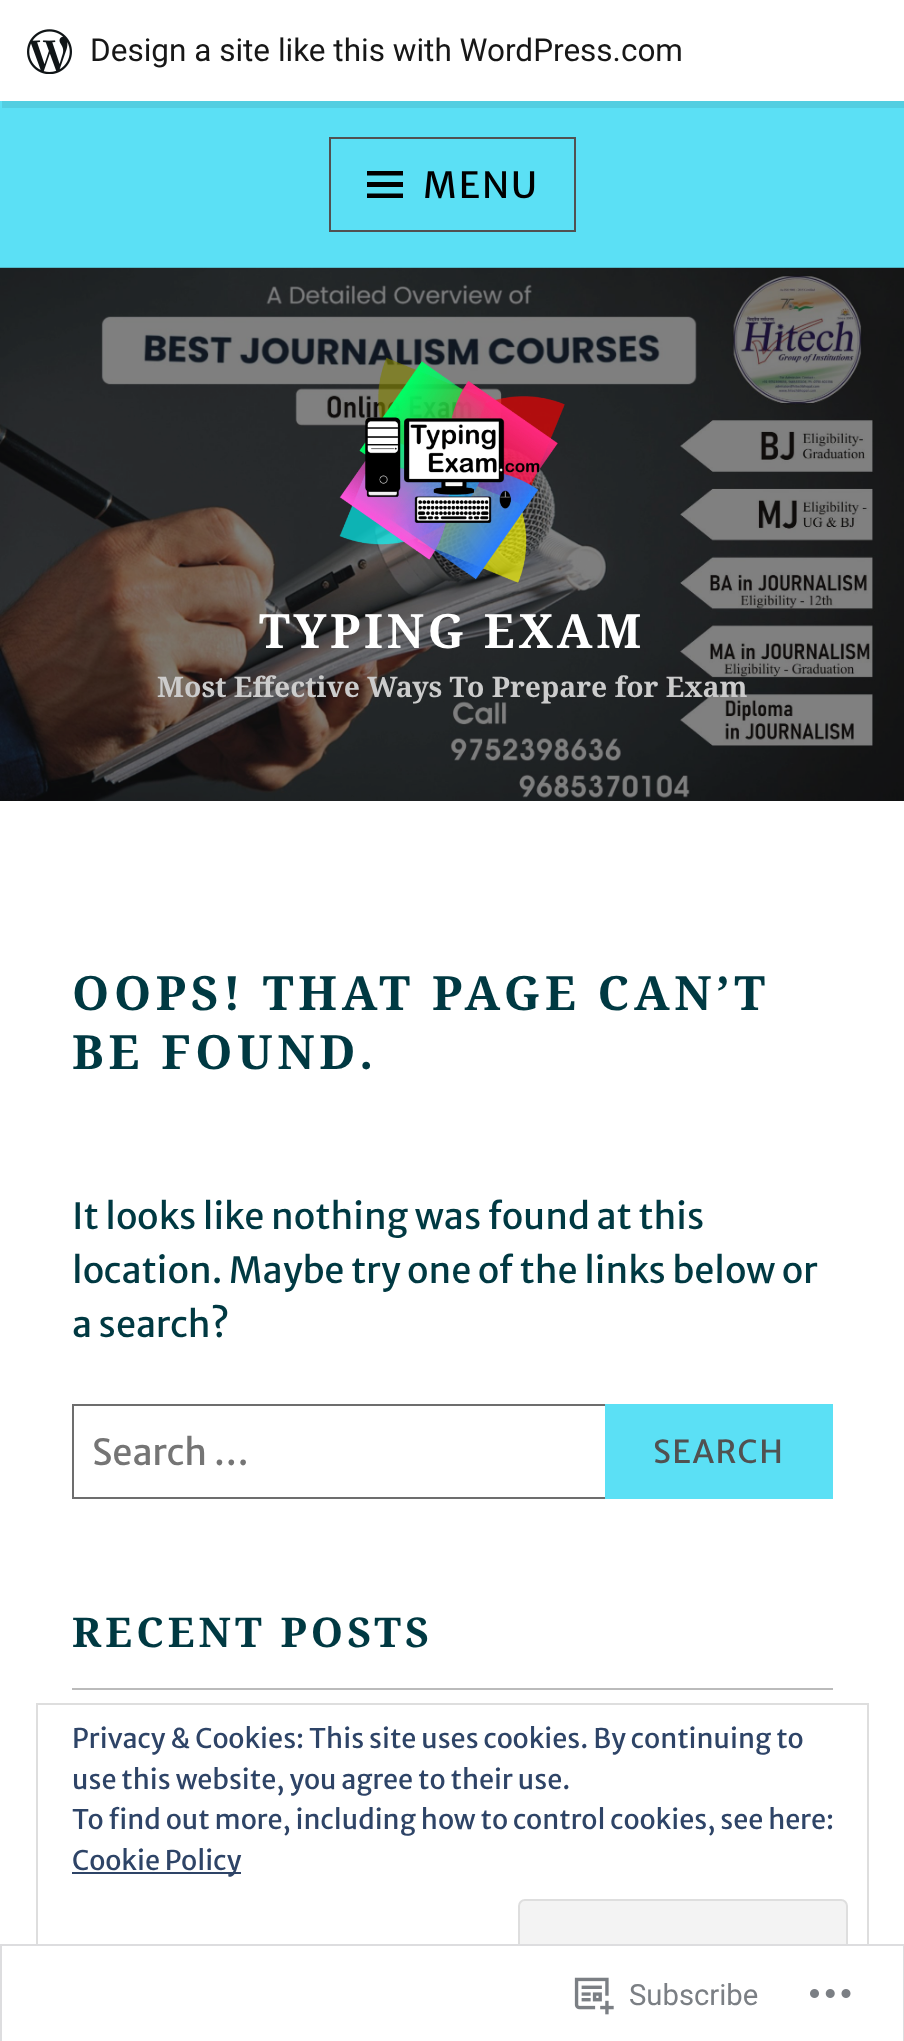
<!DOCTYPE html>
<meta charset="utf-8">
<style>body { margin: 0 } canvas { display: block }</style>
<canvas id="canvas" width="904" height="2041"></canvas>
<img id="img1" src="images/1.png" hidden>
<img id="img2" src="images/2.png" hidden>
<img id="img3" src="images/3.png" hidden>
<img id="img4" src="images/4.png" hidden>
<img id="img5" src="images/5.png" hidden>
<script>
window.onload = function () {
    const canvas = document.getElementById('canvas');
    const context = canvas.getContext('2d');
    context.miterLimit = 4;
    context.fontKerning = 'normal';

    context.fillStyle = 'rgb(255, 255, 255)';
    context.fillRect(0, 0, 904, 2041);
    context.fillStyle = 'rgb(91, 224, 245)';
    context.fillRect(0, 101, 904, 167);
    context.fillStyle = 'rgba(0, 0, 0, 0.08)';
    context.beginPath();
    context.moveTo(2, 101);
    context.lineTo(2, 108);
    context.lineTo(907, 108);
    context.lineTo(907, 7);
    context.lineTo(904, 7);
    context.lineTo(904, 101);
    context.closePath();
    context.fill();
    context.drawImage(document.getElementById('img1'), 27, 29, 45, 45);
    context.strokeStyle = 'rgb(81, 81, 81)';
    context.lineWidth = 2;
    context.strokeRect(330, 138, 245, 93);
    context.fillStyle = 'rgb(0, 0, 0)';
    context.beginPath();
    context.moveTo(367, 198);
    context.lineTo(367, 193.5);
    context.lineTo(403, 193.5);
    context.lineTo(403, 198);
    context.closePath();
    context.moveTo(367, 171);
    context.lineTo(403, 171);
    context.lineTo(403, 175.5);
    context.lineTo(367, 175.5);
    context.closePath();
    context.moveTo(367, 187);
    context.lineTo(367, 182);
    context.lineTo(403, 182);
    context.lineTo(403, 187);
    context.closePath();
    context.fill();
    context.drawImage(document.getElementById('img2'), 0, 267, 904, 534);
    context.drawImage(document.getElementById('img3'), 339, 357, 226, 226);
    context.strokeStyle = 'rgb(109, 109, 109)';
    context.strokeRect(73, 1405, 759, 93);
    context.fillStyle = 'rgb(91, 224, 245)';
    context.fillRect(605, 1404, 228, 95);
    context.fillStyle = 'rgb(187, 187, 187)';
    context.fillRect(72, 1688, 761, 2);
    context.strokeStyle = 'rgb(222, 222, 222)';
    context.strokeRect(37, 1704, 831, 302);
    context.fillStyle = 'rgb(46, 68, 103)';
    context.fillRect(72, 1872, 169, 2);
    context.fillStyle = 'rgb(243, 243, 243)';
    context.beginPath();
    context.roundRect(519, 1900, 328, 86, 6);
    context.fill();
    context.stroke();
    context.fillStyle = 'rgba(255, 255, 255, 0.98)';
    context.fillRect(36, 1944, 833, 63);
    context.strokeStyle = 'rgba(220, 220, 222, 0.98)';
    context.strokeRect(1, 1945, 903, 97);
    context.drawImage(document.getElementById('img4'), 574, 1977, 40, 38);
    context.drawImage(document.getElementById('img5'), 810, 1989, 41, 9);
    context.font = '31.5px Roboto';
    context.fillStyle = 'rgb(23, 23, 23)';
    context.fillText('Design a site like this with WordPress.com', 90, 61);
    context.letterSpacing = '2px';
    context.font = '36px Merriweather Sans';
    context.fillStyle = 'rgb(0, 0, 0)';
    context.fillText('MENU', 423, 198);
    context.letterSpacing = '3.75px';
    context.font = 'bold 47.25px Noto Serif';
    context.fillStyle = 'rgb(255, 255, 255)';
    context.fillText('TYPING EXAM', 259, 648);
    context.letterSpacing = '0px';
    context.font = 'bold 28.35px Noto Serif';
    context.fillStyle = 'rgb(204, 204, 204)';
    context.fillText('Most Effective Ways To Prepare for Exam', 157, 697);
    context.letterSpacing = '4.75px';
    context.font = 'bold 47.25px Noto Serif';
    context.fillStyle = 'rgb(0, 57, 66)';
    context.fillText('OOPS! THAT PAGE CAN’T', 72, 1010);
    context.fillText('BE FOUND.', 72, 1069);
    context.letterSpacing = '0px';
    context.font = '36px Merriweather Sans';
    context.fillText('It looks like nothing was found at this', 72, 1229);
    context.fillText('location. Maybe try one of the links below or', 72, 1283);
    context.fillText('a search?', 72, 1337);
    context.fillStyle = 'rgb(117, 117, 117)';
    context.fillText('Search …', 92, 1465);
    context.letterSpacing = '1.5px';
    context.font = '31.5px Merriweather Sans';
    context.fillStyle = 'rgb(81, 81, 81)';
    context.fillText('SEARCH', 653, 1463);
    context.letterSpacing = '4.1px';
    context.font = 'bold 41px Noto Serif';
    context.fillStyle = 'rgb(0, 57, 66)';
    context.fillText('RECENT POSTS', 72, 1647);
    context.letterSpacing = '0px';
    context.font = '27px Merriweather Sans';
    context.fillStyle = 'rgb(46, 68, 103)';
    context.fillText('Privacy & Cookies: This site uses cookies. By continuing to', 72, 1748);
    context.fillText('use this website, you agree to their use.', 72, 1789);
    context.fillText('To find out more, including how to control cookies, see here:', 72, 1829);
    context.fillText('Cookie Policy', 72, 1870);
    context.font = '29.25px Roboto';
    context.fillStyle = 'rgb(123, 127, 132)';
    context.fillText('Subscribe', 629, 2005);
};
</script>
